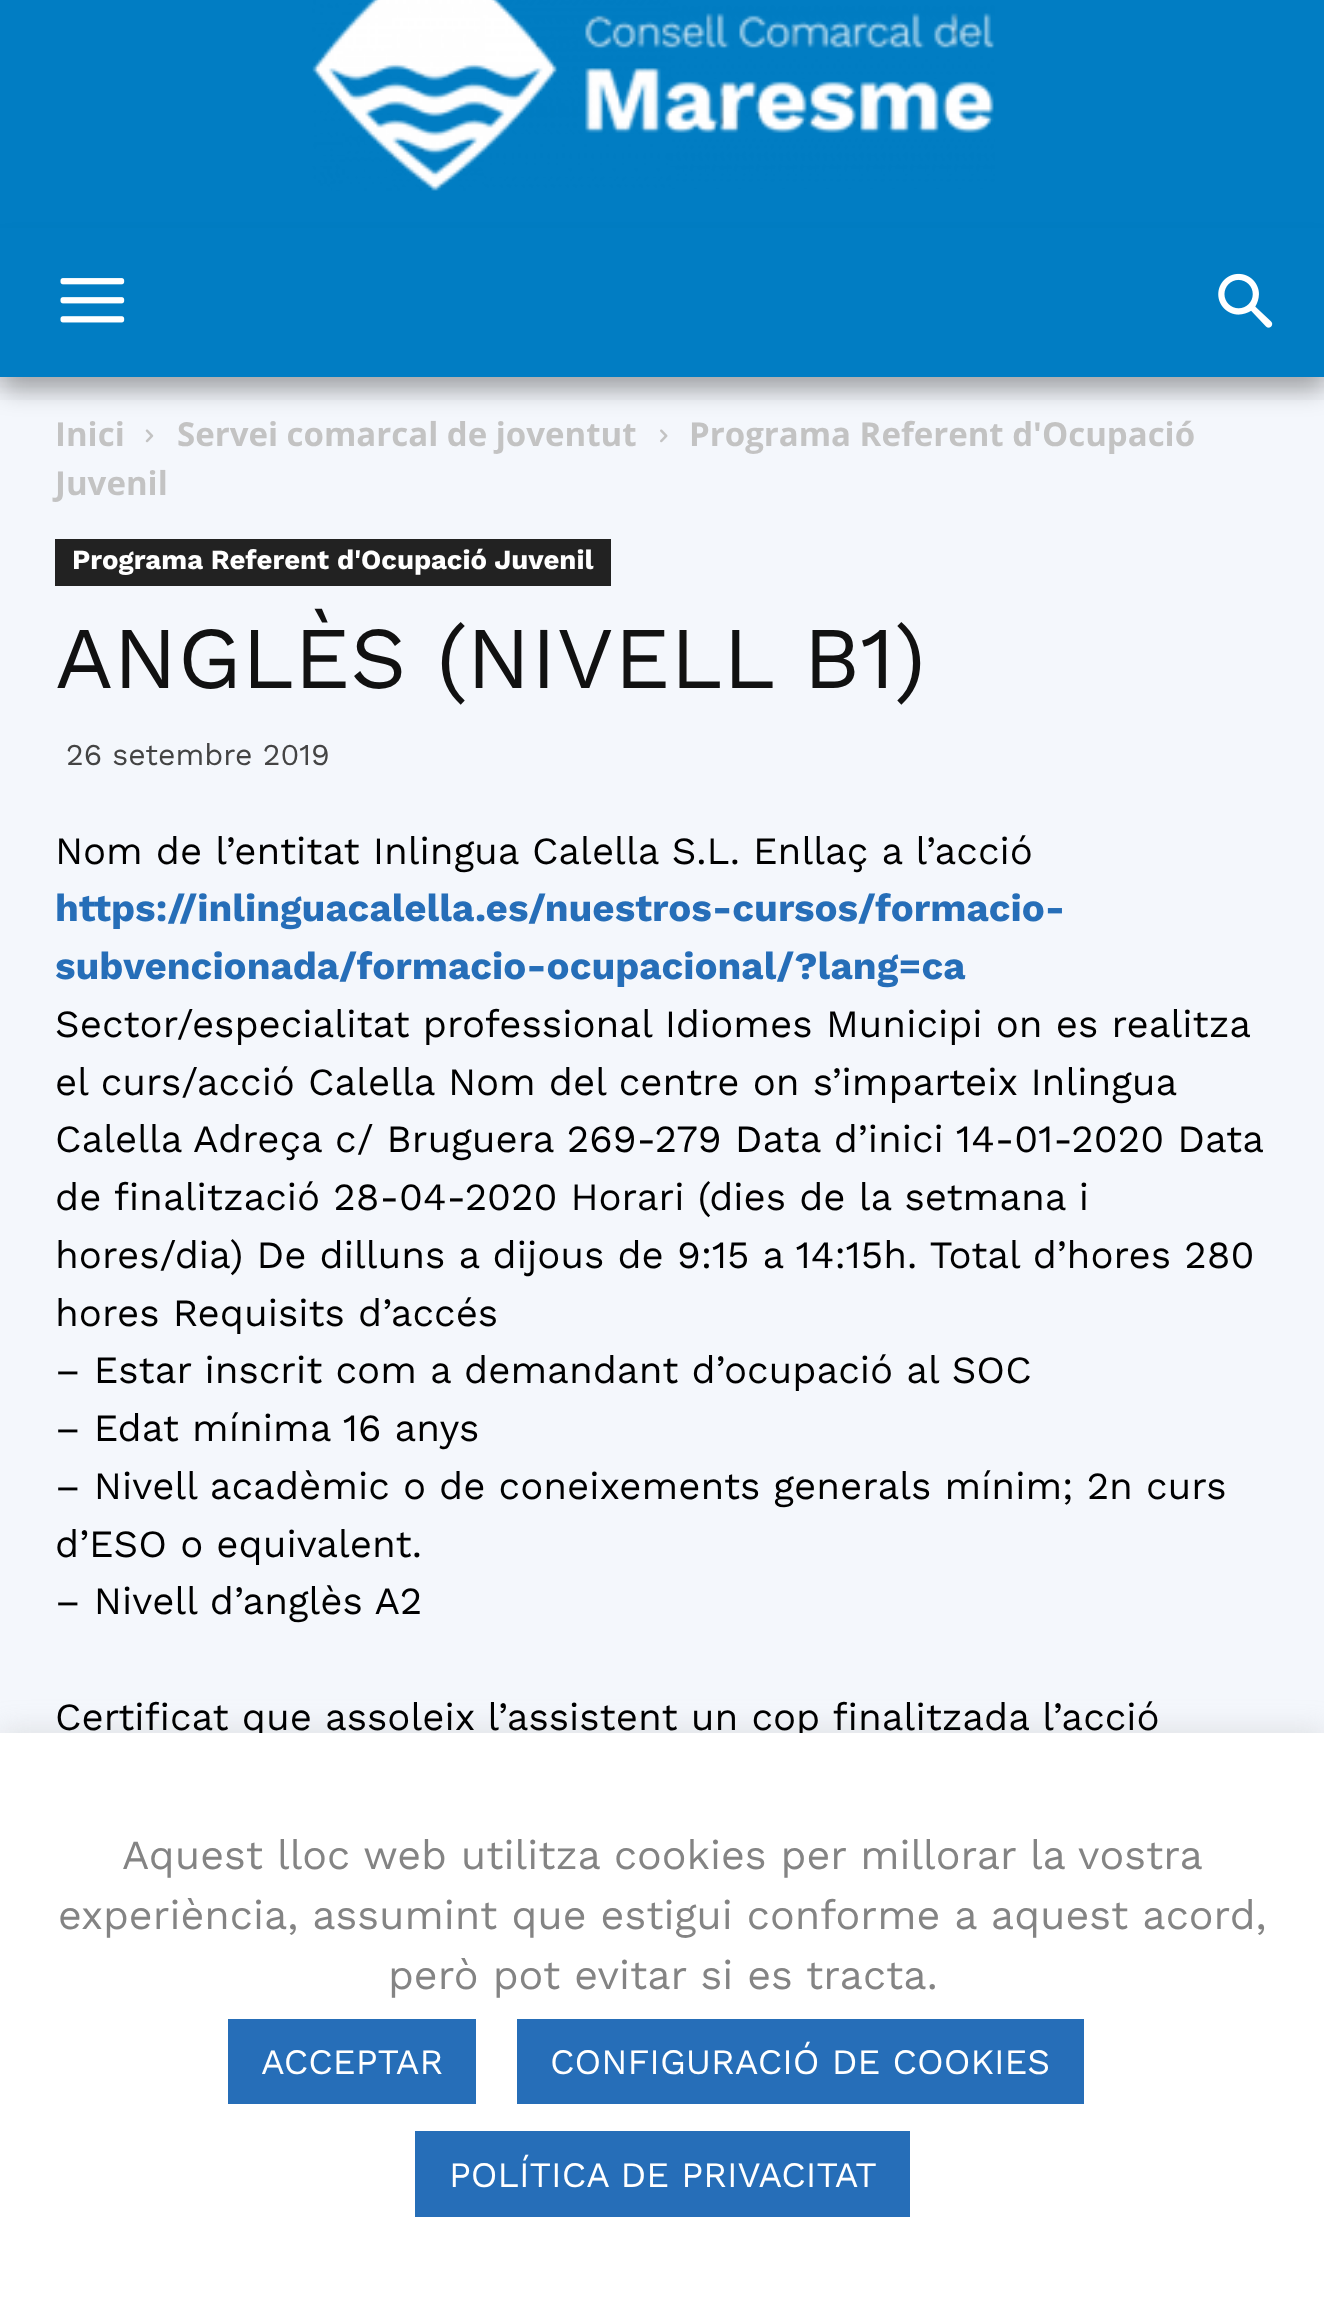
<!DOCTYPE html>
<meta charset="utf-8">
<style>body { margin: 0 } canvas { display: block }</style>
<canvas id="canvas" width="1324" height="2323"></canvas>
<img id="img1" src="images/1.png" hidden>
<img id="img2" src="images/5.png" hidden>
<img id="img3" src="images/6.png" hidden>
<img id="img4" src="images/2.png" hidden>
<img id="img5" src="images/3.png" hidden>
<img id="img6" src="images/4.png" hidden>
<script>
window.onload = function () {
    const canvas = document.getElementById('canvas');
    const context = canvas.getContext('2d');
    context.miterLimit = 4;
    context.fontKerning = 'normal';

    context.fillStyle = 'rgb(244, 247, 252)';
    context.fillRect(0, 0, 1324, 2323);
    context.fillStyle = 'rgb(1, 125, 195)';
    context.fillRect(0, 0, 1324, 228);
    context.drawImage(document.getElementById('img1'), 312, 0, 683, 191);
    context.drawImage(document.getElementById('img2'), 145, 429, 9, 14);
    context.drawImage(document.getElementById('img3'), 660, 429, 8, 14);
    context.fillStyle = 'rgba(0, 0, 0, 0.26)';
    context.filter = 'blur(12.5px)';
    context.beginPath();
    context.rect(3, 248, 1320, 143);
    context.fill();
    context.filter = 'none';
    context.fillStyle = 'rgb(1, 125, 195)';
    context.fillRect(0, 228, 1324, 149);
    context.drawImage(document.getElementById('img4'), 60, 278, 65, 45);
    context.drawImage(document.getElementById('img5'), 1218, 273, 55, 55);
    context.drawImage(document.getElementById('img6'), 0, 377, 1324, 23);
    context.fillStyle = 'rgb(34, 34, 34)';
    context.fillRect(55, 539, 556, 47);
    context.fillStyle = 'rgba(172, 171, 171, 0.3)';
    context.filter = 'blur(14px)';
    context.beginPath();
    context.rect(0, 1730, 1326, 591);
    context.fill();
    context.filter = 'none';
    context.font = 'bold 33px Open Sans';
    context.fillStyle = 'rgb(195, 195, 195)';
    context.fillText('Inici', 55, 446);
    context.fillText('Servei comarcal de joventut', 177, 446);
    context.fillText('Programa Referent d\'Ocupació', 689, 446);
    context.fillText('Juvenil', 55, 495);
    context.font = 'bold 27.5px Work Sans';
    context.fillStyle = 'rgb(255, 255, 255)';
    context.fillText('Programa Referent d\'Ocupació Juvenil', 72, 569);
    context.font = '88px Work Sans';
    context.fillStyle = 'rgb(17, 17, 17)';
    context.fillText('ANGLÈS (NIVELL B1)', 55, 688);
    context.font = '30.25px Work Sans';
    context.fillStyle = 'rgb(68, 68, 68)';
    context.fillText('26 setembre 2019', 66, 765);
    context.font = '38.5px Work Sans';
    context.fillStyle = 'rgb(0, 0, 0)';
    context.fillText('Nom de l’entitat Inlingua Calella S.L. Enllaç a l’acció', 55, 864);
    context.font = 'bold 38.5px Work Sans';
    context.fillStyle = 'rgb(38, 110, 184)';
    context.fillText('https://inlinguacalella.es/nuestros-cursos/formacio-', 55, 921);
    context.fillText('subvencionada/formacio-ocupacional/?lang=ca', 55, 979);
    context.font = '38.5px Work Sans';
    context.fillStyle = 'rgb(0, 0, 0)';
    context.fillText('Sector/especialitat professional Idiomes', 55, 1037);
    context.fillText('Municipi on es realitza', 826, 1037);
    context.fillText('el curs/acció Calella', 55, 1095);
    context.fillText('Nom del centre on s’imparteix Inlingua', 448, 1095);
    context.fillText('Calella', 55, 1152);
    context.fillText('Adreça c/ Bruguera 269-279 Data d’inici 14-01-2020 Data', 193, 1152);
    context.fillText('de finalització 28-04-2020 Horari (dies de la setmana i', 55, 1210);
    context.fillText('hores/dia) De dilluns a dijous de 9:15 a 14:15h. Total d’hores 280', 55, 1268);
    context.fillText('hores Requisits d’accés', 55, 1326);
    context.fillText('– Estar inscrit com a demandant d’ocupació al SOC', 55, 1383);
    context.fillText('– Edat mínima 16 anys', 55, 1441);
    context.fillText('– Nivell acadèmic o de coneixements generals mínim; 2n curs', 55, 1499);
    context.fillText('d’ESO o equivalent.', 55, 1557);
    context.fillText('– Nivell d’anglès A2', 55, 1614);
    context.fillText('Certificat que assoleix l’assistent un cop finalitzada l’acció', 55, 1730);
    context.fillStyle = 'rgb(255, 255, 255)';
    context.fillRect(0, 1733, 1324, 590);
    context.font = '41.25px Work Sans';
    context.fillStyle = 'rgb(132, 132, 132)';
    context.fillText('Aquest lloc web utilitza cookies per millorar la vostra', 122, 1869);
    context.fillText('experiència, assumint que estigui conforme a aquest acord,', 58, 1929);
    context.fillText('però pot evitar si es tracta.', 388, 1989);
    context.fillStyle = 'rgb(38, 110, 184)';
    context.fillRect(228, 2019, 248, 85);
    context.font = '35.75px Work Sans';
    context.fillStyle = 'rgb(255, 255, 255)';
    context.fillText('ACCEPTAR', 261, 2074);
    context.fillStyle = 'rgb(38, 110, 184)';
    context.fillRect(517, 2019, 567, 85);
    context.fillStyle = 'rgb(255, 255, 255)';
    context.fillText('CONFIGURACIÓ DE COOKIES', 550, 2074);
    context.fillStyle = 'rgb(38, 110, 184)';
    context.fillRect(415, 2131, 495, 86);
    context.fillStyle = 'rgb(255, 255, 255)';
    context.fillText('POLÍTICA DE PRIVACITAT', 449, 2187);
};
</script>
